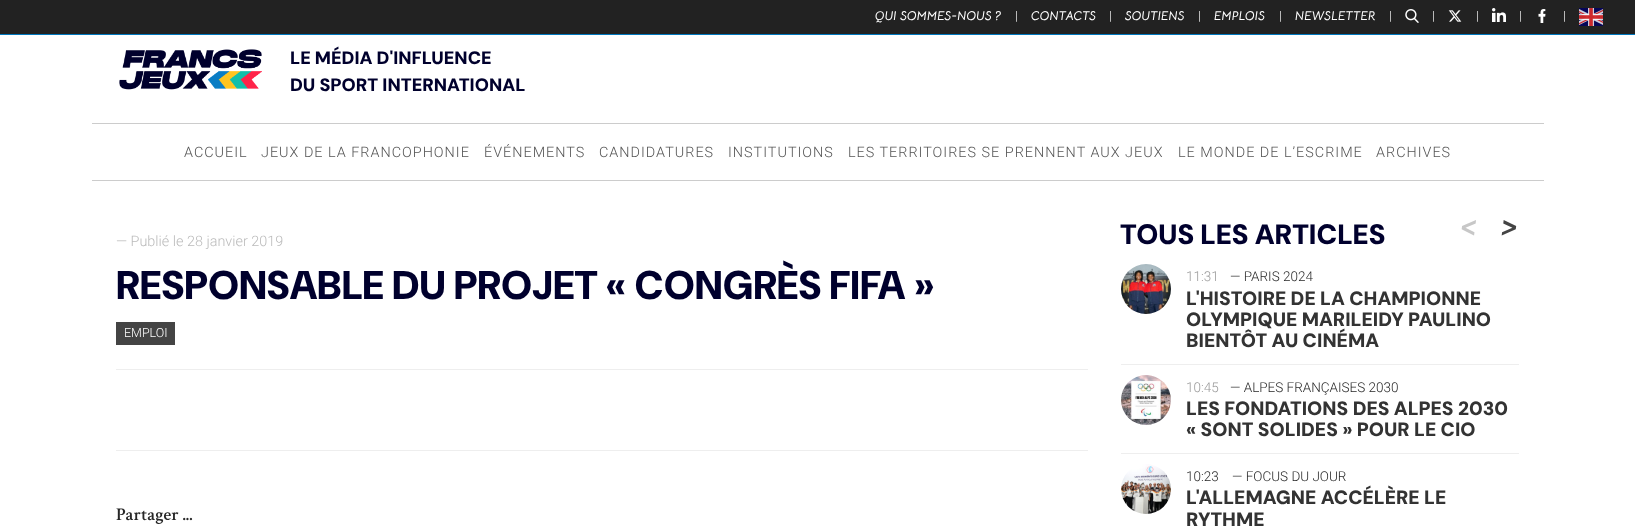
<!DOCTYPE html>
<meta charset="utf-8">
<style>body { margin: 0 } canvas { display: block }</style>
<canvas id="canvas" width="1635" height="531"></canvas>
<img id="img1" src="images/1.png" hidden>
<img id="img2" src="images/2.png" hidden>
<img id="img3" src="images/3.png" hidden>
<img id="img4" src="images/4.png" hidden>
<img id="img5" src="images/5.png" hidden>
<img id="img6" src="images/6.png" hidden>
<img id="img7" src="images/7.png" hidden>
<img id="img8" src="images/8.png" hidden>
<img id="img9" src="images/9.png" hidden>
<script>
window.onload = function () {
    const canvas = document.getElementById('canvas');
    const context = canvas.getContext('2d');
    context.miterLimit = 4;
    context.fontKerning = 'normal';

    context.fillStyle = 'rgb(255, 255, 255)';
    context.fillRect(0, 0, 1635, 531);
    context.fillStyle = 'rgb(34, 34, 34)';
    context.fillRect(0, 0, 1635, 34);
    context.fillStyle = 'rgb(0, 119, 189)';
    context.fillRect(0, 34, 1635, 1);
    context.drawImage(document.getElementById('img1'), 1405, 9, 14, 14);
    context.drawImage(document.getElementById('img2'), 1448, 10, 14, 12);
    context.drawImage(document.getElementById('img3'), 1492, 8, 14, 14);
    context.drawImage(document.getElementById('img4'), 1538, 9, 8, 14);
    context.drawImage(document.getElementById('img5'), 1579, 8, 24, 18);
    context.drawImage(document.getElementById('img6'), 119, 49, 143, 41);
    context.fillStyle = 'rgb(204, 204, 204)';
    context.fillRect(92, 123, 1452, 1);
    context.fillRect(92, 180, 1452, 1);
    context.fillStyle = 'rgb(238, 238, 238)';
    context.fillRect(116, 369, 972, 1);
    context.fillStyle = 'rgb(68, 68, 68)';
    context.fillRect(116, 322, 59, 23);
    context.fillStyle = 'rgb(238, 238, 238)';
    context.fillRect(116, 450, 972, 1);
    context.fillRect(1121, 364, 398, 1);
    context.drawImage(document.getElementById('img7'), 1121, 264, 50, 50);
    context.fillRect(1121, 453, 398, 1);
    context.drawImage(document.getElementById('img8'), 1121, 375, 50, 50);
    context.drawImage(document.getElementById('img9'), 1121, 464, 50, 50);
    context.font = 'italic bold 12.75px Bellota Text';
    context.fillStyle = 'rgb(255, 255, 255)';
    context.fillText('QUI SOMMES-NOUS ?', 875, 20);
    context.font = '300 12.75px Roboto';
    context.fillText('|', 1015, 20);
    context.font = 'italic bold 12.75px Bellota Text';
    context.fillText('CONTACTS', 1031, 20);
    context.font = '300 12.75px Roboto';
    context.fillText('|', 1109, 20);
    context.font = 'italic bold 12.75px Bellota Text';
    context.fillText('SOUTIENS', 1125, 20);
    context.font = '300 12.75px Roboto';
    context.fillText('|', 1198, 20);
    context.font = 'italic bold 12.75px Bellota Text';
    context.fillText('EMPLOIS', 1214, 20);
    context.font = '300 12.75px Roboto';
    context.fillText('|', 1279, 20);
    context.font = 'italic bold 12.75px Bellota Text';
    context.fillText('NEWSLETTER', 1295, 20);
    context.font = '300 12.75px Roboto';
    context.fillText('|', 1389, 20);
    context.fillText('|', 1432, 20);
    context.fillText('|', 1476, 20);
    context.fillText('|', 1519, 20);
    context.fillText('|', 1563, 20);
    context.font = '900 18px DM Sans';
    context.fillStyle = 'rgb(0, 0, 45)';
    context.fillText('LE MÉDIA D\'INFLUENCE', 290, 64);
    context.fillText('DU SPORT INTERNATIONAL', 290, 91);
    context.letterSpacing = '1px';
    context.font = '300 14.4px Roboto';
    context.fillStyle = 'rgb(85, 85, 85)';
    context.fillText('ACCUEIL', 184, 157);
    context.fillText('JEUX DE LA FRANCOPHONIE', 261, 157);
    context.fillText('ÉVÉNEMENTS', 484, 157);
    context.fillText('CANDIDATURES', 599, 157);
    context.fillText('INSTITUTIONS', 728, 157);
    context.fillText('LES TERRITOIRES SE PRENNENT AUX JEUX', 848, 157);
    context.fillText('LE MONDE DE L’ESCRIME', 1178, 157);
    context.fillText('ARCHIVES', 1376, 157);
    context.letterSpacing = '0px';
    context.fillStyle = 'rgb(187, 187, 187)';
    context.fillText('— Publié le 28 janvier 2019', 116, 246);
    context.font = '900 40px "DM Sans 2"';
    context.fillStyle = 'rgb(0, 0, 45)';
    context.fillText('RESPONSABLE DU PROJET « CONGRÈS FIFA »', 116, 299);
    context.font = '300 12.5px Roboto';
    context.fillStyle = 'rgb(255, 255, 255)';
    context.fillText('EMPLOI', 124, 337);
    context.font = '600 18px Crimson Text';
    context.fillStyle = 'rgb(39, 39, 39)';
    context.fillText('Partager ...', 116, 520);
    context.font = 'italic bold 38px Bellota Text';
    context.fillStyle = 'rgb(199, 199, 199)';
    context.fillText('<', 1460, 238);
    context.fillStyle = 'rgb(68, 68, 68)';
    context.fillText('>', 1500, 238);
    context.font = '300 13.5px Roboto';
    context.fillStyle = 'rgb(153, 153, 153)';
    context.fillText('11:31', 1186, 281);
    context.fillStyle = 'rgb(39, 39, 39)';
    context.fillText('— PARIS 2024', 1230, 281);
    context.font = '900 19.25px "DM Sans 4"';
    context.fillStyle = 'rgb(51, 51, 51)';
    context.fillText('L\'HISTOIRE DE LA CHAMPIONNE', 1186, 305);
    context.fillText('OLYMPIQUE MARILEIDY PAULINO', 1186, 326);
    context.fillText('BIENTÔT AU CINÉMA', 1186, 347);
    context.font = '300 13.5px Roboto';
    context.fillStyle = 'rgb(153, 153, 153)';
    context.fillText('10:45', 1186, 392);
    context.fillStyle = 'rgb(39, 39, 39)';
    context.fillText('— ALPES FRANÇAISES 2030', 1230, 392);
    context.font = '900 19.25px "DM Sans 4"';
    context.fillStyle = 'rgb(51, 51, 51)';
    context.fillText('LES FONDATIONS DES ALPES 2030', 1186, 415);
    context.fillText('« SONT SOLIDES » POUR LE CIO', 1186, 436);
    context.font = '300 13.5px Roboto';
    context.fillStyle = 'rgb(39, 39, 39)';
    context.fillText('10:23', 1186, 481);
    context.fillText('— FOCUS DU JOUR', 1232, 481);
    context.font = '900 19.25px "DM Sans 4"';
    context.fillStyle = 'rgb(51, 51, 51)';
    context.fillText('L\'ALLEMAGNE ACCÉLÈRE LE', 1186, 504);
    context.fillText('RYTHME', 1186, 526);
    context.font = '900 28px "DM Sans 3"';
    context.fillStyle = 'rgb(0, 0, 45)';
    context.fillText('TOUS LES ARTICLES', 1120, 244);
};
</script>
